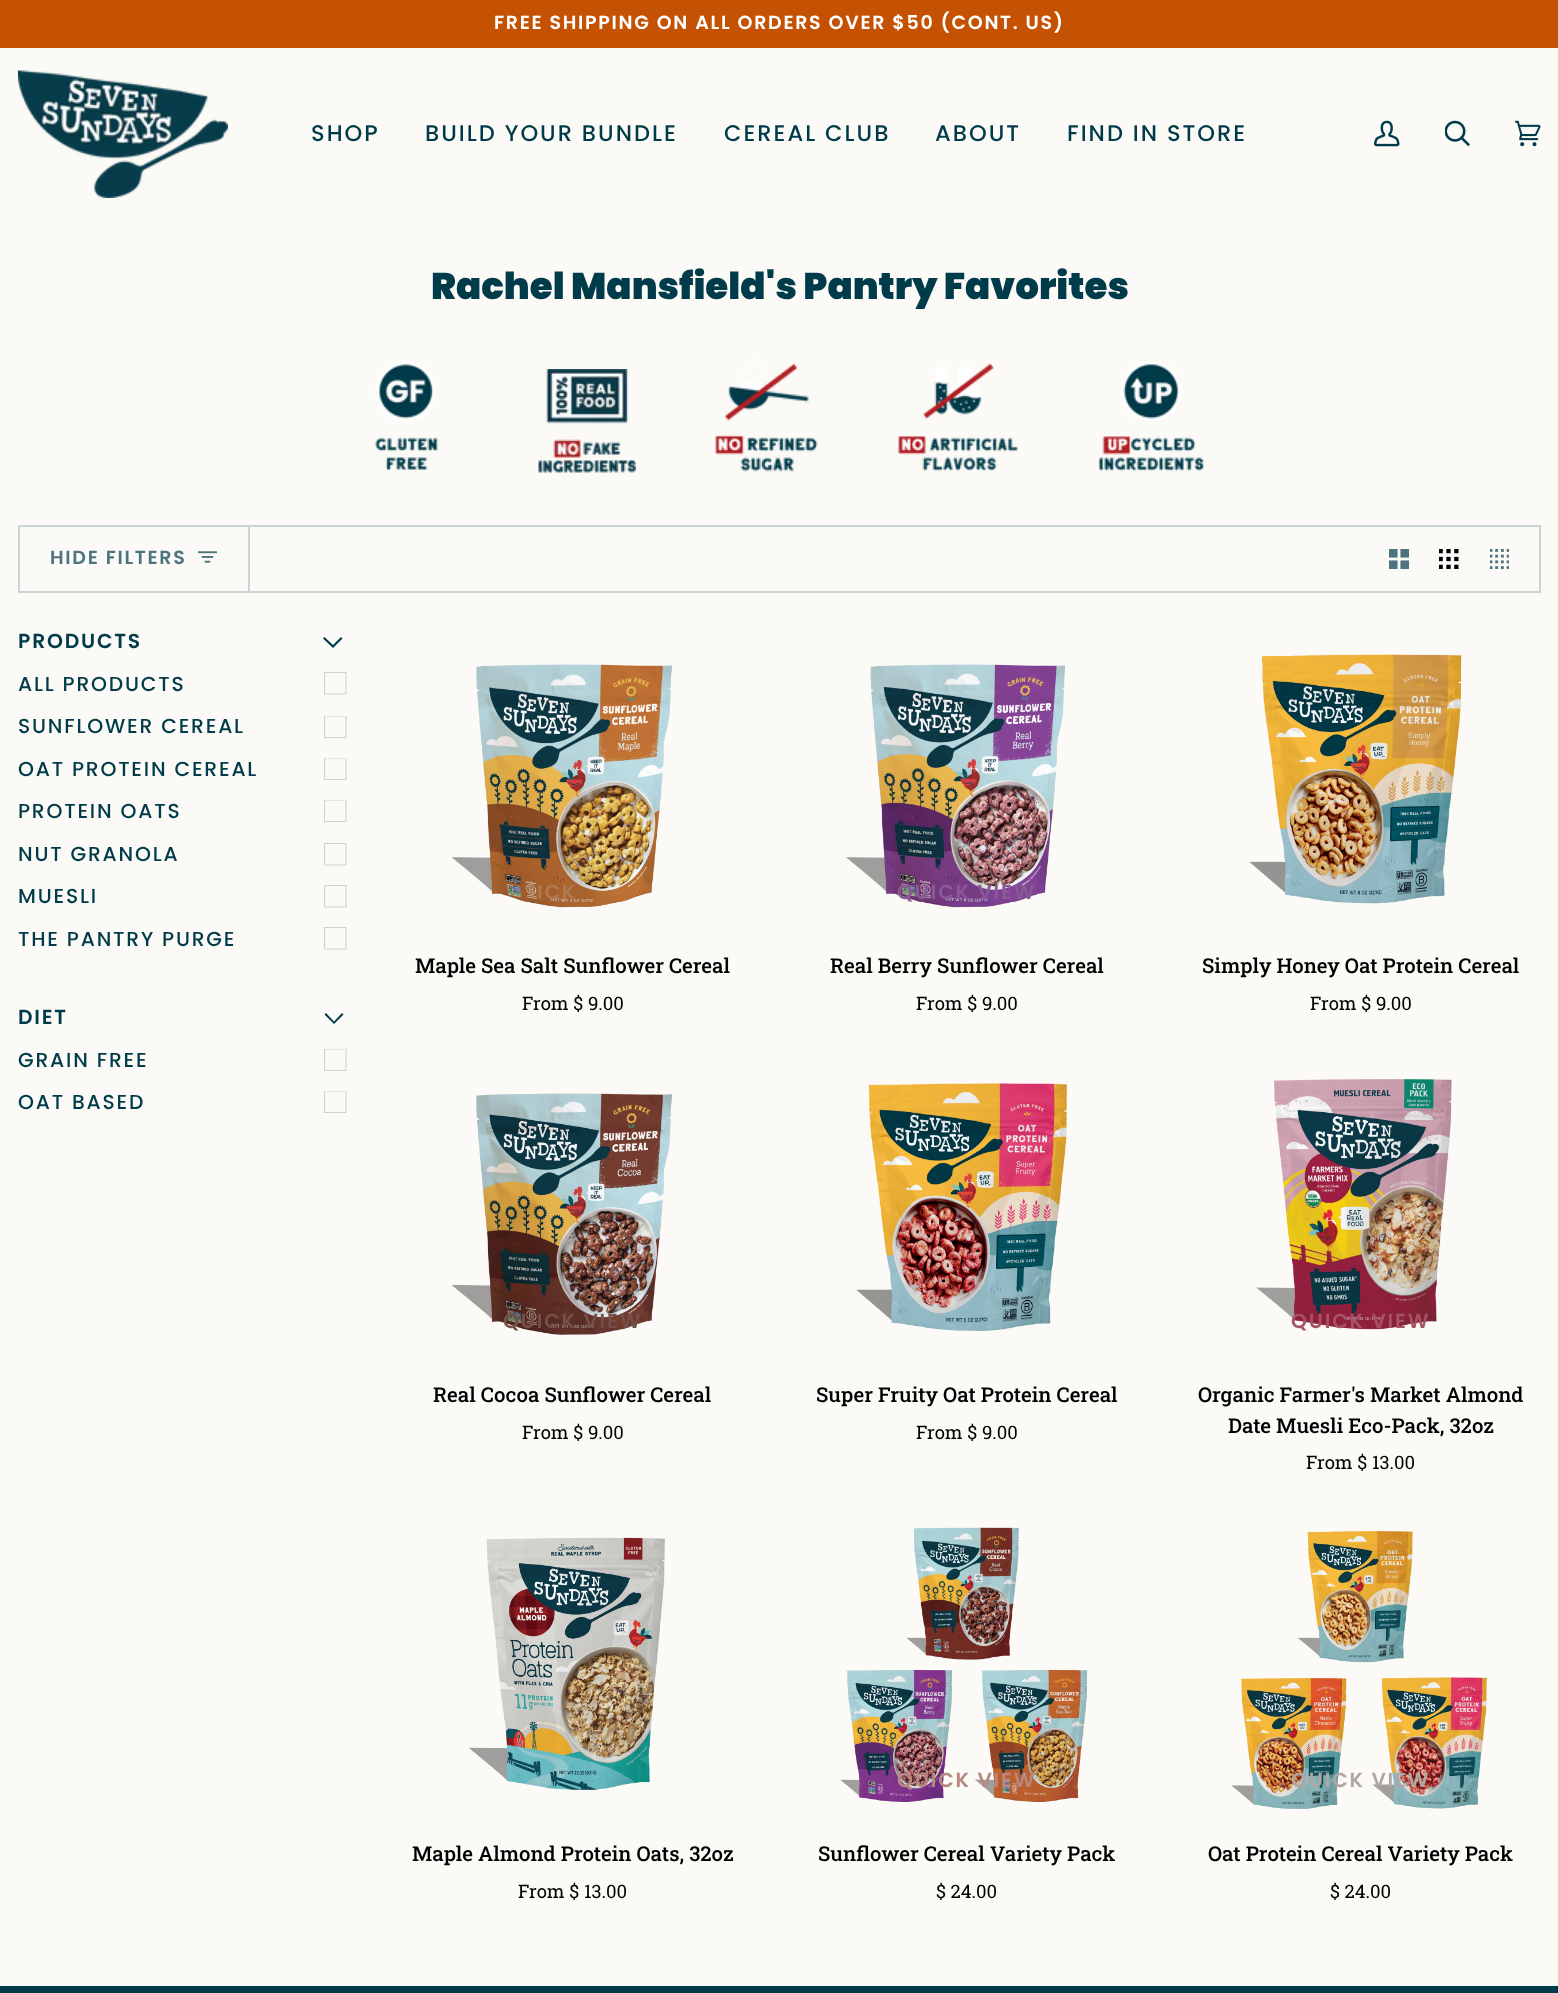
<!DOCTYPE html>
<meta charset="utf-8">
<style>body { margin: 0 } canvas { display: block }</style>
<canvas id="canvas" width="1558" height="1993"></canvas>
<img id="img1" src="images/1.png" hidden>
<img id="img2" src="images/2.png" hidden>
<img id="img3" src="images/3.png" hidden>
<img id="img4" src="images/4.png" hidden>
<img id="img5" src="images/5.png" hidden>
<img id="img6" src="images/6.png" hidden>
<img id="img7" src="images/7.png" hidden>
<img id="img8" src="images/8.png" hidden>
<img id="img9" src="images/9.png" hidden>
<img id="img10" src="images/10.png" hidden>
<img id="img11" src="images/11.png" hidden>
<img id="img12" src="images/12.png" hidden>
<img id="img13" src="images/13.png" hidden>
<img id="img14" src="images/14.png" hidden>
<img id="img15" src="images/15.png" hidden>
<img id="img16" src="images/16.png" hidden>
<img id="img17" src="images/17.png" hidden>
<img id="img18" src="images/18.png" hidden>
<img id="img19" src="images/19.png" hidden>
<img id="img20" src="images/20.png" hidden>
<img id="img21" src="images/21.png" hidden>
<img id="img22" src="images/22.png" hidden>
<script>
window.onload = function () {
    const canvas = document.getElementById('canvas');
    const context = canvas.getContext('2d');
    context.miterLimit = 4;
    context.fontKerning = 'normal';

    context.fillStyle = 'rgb(252, 250, 247)';
    context.fillRect(0, 0, 1558, 1993);
    context.fillStyle = 'rgb(197, 82, 2)';
    context.fillRect(0, 0, 1558, 48);
    context.drawImage(document.getElementById('img1'), 18, 70, 210, 128);
    context.drawImage(document.getElementById('img2'), 1374, 120, 26, 27);
    context.drawImage(document.getElementById('img3'), 1445, 120, 25, 27);
    context.drawImage(document.getElementById('img4'), 1515, 120, 26, 27);
    context.drawImage(document.getElementById('img5'), 374, 361, 65, 110);
    context.drawImage(document.getElementById('img6'), 538, 369, 98, 104);
    context.drawImage(document.getElementById('img7'), 715, 359, 103, 113);
    context.drawImage(document.getElementById('img8'), 898, 363, 121, 109);
    context.drawImage(document.getElementById('img9'), 1098, 361, 107, 111);
    context.strokeStyle = 'rgb(202, 212, 212)';
    context.lineWidth = 2;
    context.strokeRect(19, 526, 1521, 66);
    context.fillStyle = 'rgb(202, 212, 212)';
    context.fillRect(248, 527, 2, 64);
    context.drawImage(document.getElementById('img10'), 198, 551, 19, 12);
    context.drawImage(document.getElementById('img11'), 1389, 549, 20, 20);
    context.drawImage(document.getElementById('img12'), 1439, 549, 20, 20);
    context.drawImage(document.getElementById('img13'), 1490, 549, 19, 20);
    context.fillStyle = 'rgb(0, 59, 74)';
    context.beginPath();
    context.moveTo(333, 645);
    context.lineTo(341, 637);
    context.lineTo(342.5, 638.5);
    context.lineTo(333, 648);
    context.lineTo(323, 638.5);
    context.lineTo(324.5, 637);
    context.closePath();
    context.fill('evenodd');
    context.beginPath();
    context.moveTo(324.5, 672.5);
    context.lineTo(346, 672.5);
    context.lineTo(346, 694);
    context.lineTo(324.5, 694);
    context.closePath();
    context.lineWidth = 1.1;
    context.stroke();
    context.save();
    context.beginPath();
    context.rect(324, 716, 23, 22);
    context.clip();
    context.beginPath();
    context.moveTo(324.5, 716);
    context.lineTo(346, 716);
    context.lineTo(346, 737.5);
    context.lineTo(324.5, 737.5);
    context.closePath();
    context.stroke();
    context.restore();
    context.save();
    context.beginPath();
    context.rect(324, 758, 23, 22);
    context.clip();
    context.beginPath();
    context.moveTo(324.5, 758);
    context.lineTo(346, 758);
    context.lineTo(346, 779.5);
    context.lineTo(324.5, 779.5);
    context.closePath();
    context.stroke();
    context.restore();
    context.save();
    context.beginPath();
    context.rect(324, 800, 23, 22);
    context.clip();
    context.beginPath();
    context.moveTo(324.5, 800);
    context.lineTo(346, 800);
    context.lineTo(346, 821.5);
    context.lineTo(324.5, 821.5);
    context.closePath();
    context.stroke();
    context.restore();
    context.beginPath();
    context.moveTo(324.5, 843.5);
    context.lineTo(346, 843.5);
    context.lineTo(346, 865);
    context.lineTo(324.5, 865);
    context.closePath();
    context.stroke();
    context.beginPath();
    context.moveTo(324.5, 885.5);
    context.lineTo(346, 885.5);
    context.lineTo(346, 907);
    context.lineTo(324.5, 907);
    context.closePath();
    context.stroke();
    context.beginPath();
    context.moveTo(324.5, 927.5);
    context.lineTo(346, 927.5);
    context.lineTo(346, 949);
    context.lineTo(324.5, 949);
    context.closePath();
    context.stroke();
    context.beginPath();
    context.moveTo(334, 1021.5);
    context.lineTo(342, 1013);
    context.lineTo(343.5, 1014.5);
    context.lineTo(334, 1024);
    context.lineTo(324.5, 1014.5);
    context.lineTo(326, 1013);
    context.closePath();
    context.fill('evenodd');
    context.save();
    context.beginPath();
    context.rect(324, 1049, 23, 22);
    context.clip();
    context.beginPath();
    context.moveTo(324.5, 1049);
    context.lineTo(346, 1049);
    context.lineTo(346, 1070.5);
    context.lineTo(324.5, 1070.5);
    context.closePath();
    context.stroke();
    context.restore();
    context.save();
    context.beginPath();
    context.rect(324, 1091, 23, 22);
    context.clip();
    context.beginPath();
    context.moveTo(324.5, 1091);
    context.lineTo(346, 1091);
    context.lineTo(346, 1112.5);
    context.lineTo(324.5, 1112.5);
    context.closePath();
    context.stroke();
    context.restore();
    context.drawImage(document.getElementById('img14'), 452, 664, 220, 244);
    context.drawImage(document.getElementById('img15'), 846, 664, 220, 244);
    context.drawImage(document.getElementById('img16'), 1249, 654, 213, 250);
    context.drawImage(document.getElementById('img17'), 452, 1093, 220, 242);
    context.drawImage(document.getElementById('img18'), 856, 1083, 211, 248);
    context.drawImage(document.getElementById('img19'), 1256, 1079, 196, 251);
    context.drawImage(document.getElementById('img20'), 469, 1537, 196, 254);
    context.drawImage(document.getElementById('img21'), 840, 1527, 248, 275);
    context.drawImage(document.getElementById('img22'), 1231, 1531, 256, 278);
    context.fillRect(0, 1986, 1558, 7);
    context.letterSpacing = '1.7px';
    context.font = '600 19px Poppins';
    context.fillStyle = 'rgb(255, 255, 255)';
    context.fillText('FREE SHIPPING ON ALL ORDERS OVER $50 (CONT. US)', 494, 29);
    context.letterSpacing = '2px';
    context.font = '500 22.6px Poppins';
    context.fillStyle = 'rgb(0, 59, 74)';
    context.fillText('SHOP', 311, 141);
    context.fillText('BUILD YOUR BUNDLE', 425, 141);
    context.fillText('CEREAL CLUB', 724, 141);
    context.fillText('ABOUT', 935, 141);
    context.fillText('FIND IN STORE', 1067, 141);
    context.letterSpacing = '0px';
    context.font = '900 37.2px Poppins';
    context.fillText('Rachel Mansfield\'s Pantry Favorites', 431, 299);
    context.letterSpacing = '1.7px';
    context.font = '600 19px Poppins';
    context.fillStyle = 'rgb(76, 116, 126)';
    context.fillText('HIDE FILTERS', 50, 564);
    context.letterSpacing = '1.8px';
    context.font = '600 20.3px Poppins';
    context.fillStyle = 'rgb(0, 59, 74)';
    context.fillText('PRODUCTS', 18, 648);
    context.font = '500 20.3px Poppins';
    context.fillText('ALL PRODUCTS', 18, 691);
    context.fillText('SUNFLOWER CEREAL', 18, 733);
    context.fillText('OAT PROTEIN CEREAL', 18, 776);
    context.fillText('PROTEIN OATS', 18, 818);
    context.fillText('NUT GRANOLA', 18, 861);
    context.fillText('MUESLI', 18, 903);
    context.fillText('THE PANTRY PURGE', 18, 946);
    context.font = '600 20.3px Poppins';
    context.fillText('DIET', 18, 1024);
    context.font = '500 20.3px Poppins';
    context.fillText('GRAIN FREE', 18, 1067);
    context.fillText('OAT BASED', 18, 1109);
    context.font = '600 20.3px Poppins';
    context.fillStyle = 'rgb(177, 121, 77)';
    context.fillText('ICK', 537, 899);
    context.letterSpacing = '0px';
    context.font = '500 20.5px Roboto Slab';
    context.fillStyle = 'rgb(0, 0, 0)';
    context.fillText('Maple Sea Salt Sunflower Cereal', 415, 973);
    context.font = '18.5px Roboto Slab';
    context.fillText('From $ 9.00', 522, 1010);
    context.letterSpacing = '1.8px';
    context.font = '600 20.3px Poppins';
    context.fillStyle = 'rgb(137, 91, 149)';
    context.fillText('QUICK VIEW', 897, 899);
    context.letterSpacing = '0px';
    context.font = '500 20.5px Roboto Slab';
    context.fillStyle = 'rgb(0, 0, 0)';
    context.fillText('Real Berry Sunflower Cereal', 830, 973);
    context.font = '18.5px Roboto Slab';
    context.fillText('From $ 9.00', 916, 1010);
    context.font = '500 20.5px Roboto Slab';
    context.fillText('Simply Honey Oat Protein Cereal', 1202, 973);
    context.font = '18.5px Roboto Slab';
    context.fillText('From $ 9.00', 1310, 1010);
    context.letterSpacing = '1.8px';
    context.font = '600 20.3px Poppins';
    context.fillStyle = 'rgb(117, 80, 72)';
    context.fillText('QUICK VIEW', 503, 1328);
    context.letterSpacing = '0px';
    context.font = '500 20.5px Roboto Slab';
    context.fillStyle = 'rgb(0, 0, 0)';
    context.fillText('Real Cocoa Sunflower Cereal', 433, 1402);
    context.font = '18.5px Roboto Slab';
    context.fillText('From $ 9.00', 522, 1439);
    context.font = '500 20.5px Roboto Slab';
    context.fillText('Super Fruity Oat Protein Cereal', 816, 1402);
    context.font = '18.5px Roboto Slab';
    context.fillText('From $ 9.00', 916, 1439);
    context.letterSpacing = '1.8px';
    context.font = '600 20.3px Poppins';
    context.fillStyle = 'rgb(164, 82, 100)';
    context.fillText('QUICK VIEW', 1291, 1328);
    context.letterSpacing = '0px';
    context.font = '500 20.5px Roboto Slab';
    context.fillStyle = 'rgb(0, 0, 0)';
    context.fillText('Organic Farmer\'s Market Almond', 1198, 1402);
    context.fillText('Date Muesli Eco-Pack, 32oz', 1228, 1433);
    context.font = '18.5px Roboto Slab';
    context.fillText('From $ 13.00', 1306, 1469);
    context.font = '500 20.5px Roboto Slab';
    context.fillText('Maple Almond Protein Oats, 32oz', 412, 1861);
    context.font = '18.5px Roboto Slab';
    context.fillText('From $ 13.00', 518, 1898);
    context.letterSpacing = '1.8px';
    context.font = '600 20.3px Poppins';
    context.fillStyle = 'rgb(183, 135, 129)';
    context.fillText('QUICK VIEW', 897, 1787);
    context.letterSpacing = '0px';
    context.font = '500 20.5px Roboto Slab';
    context.fillStyle = 'rgb(0, 0, 0)';
    context.fillText('Sunflower Cereal Variety Pack', 818, 1861);
    context.font = '18.5px Roboto Slab';
    context.fillText('$ 24.00', 936, 1898);
    context.letterSpacing = '1.8px';
    context.font = '600 20.3px Poppins';
    context.fillStyle = 'rgb(177, 166, 162)';
    context.fillText('QUICK VIEW', 1291, 1787);
    context.letterSpacing = '0px';
    context.font = '500 20.5px Roboto Slab';
    context.fillStyle = 'rgb(0, 0, 0)';
    context.fillText('Oat Protein Cereal Variety Pack', 1208, 1861);
    context.font = '18.5px Roboto Slab';
    context.fillText('$ 24.00', 1330, 1898);
};
</script>
